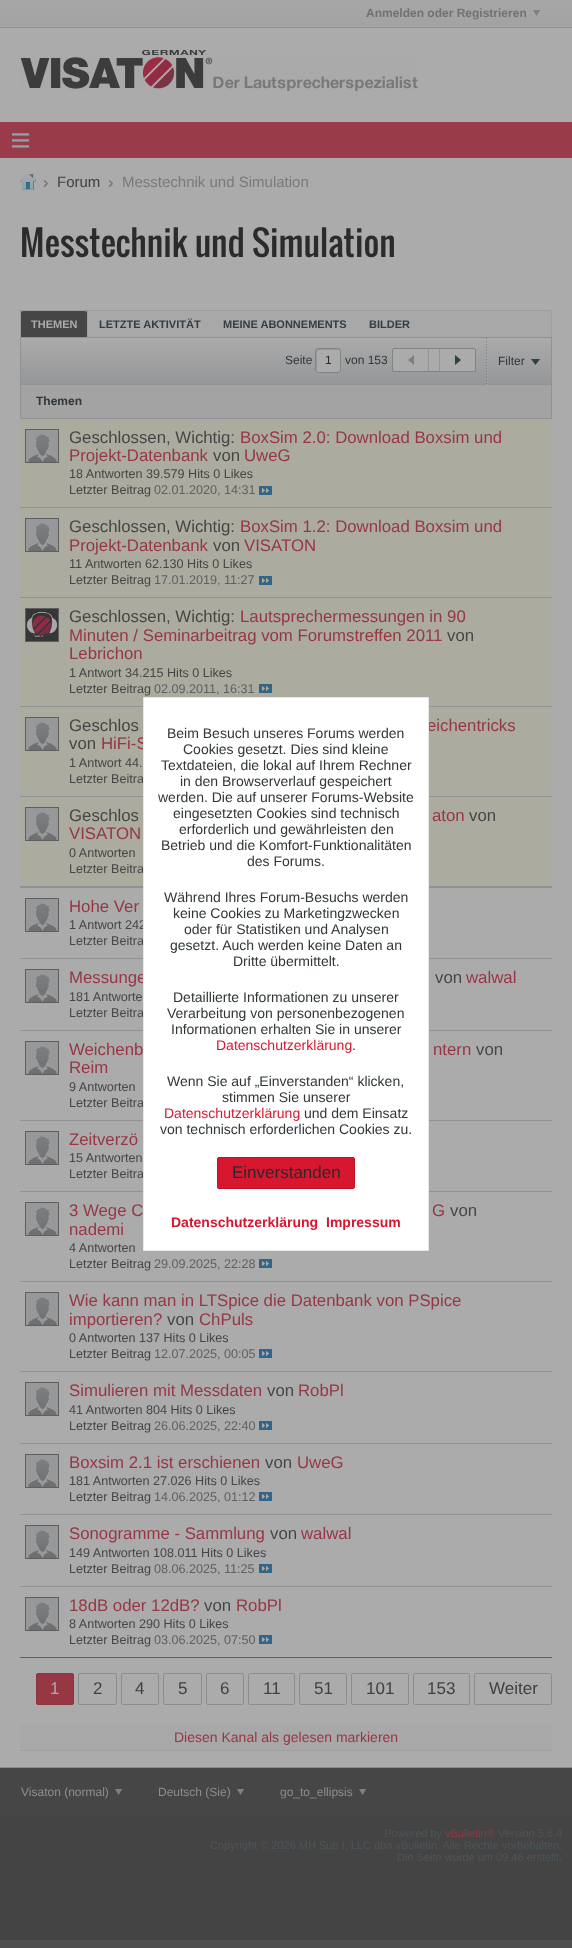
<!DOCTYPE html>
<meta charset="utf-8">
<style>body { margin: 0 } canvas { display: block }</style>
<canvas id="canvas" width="572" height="1948"></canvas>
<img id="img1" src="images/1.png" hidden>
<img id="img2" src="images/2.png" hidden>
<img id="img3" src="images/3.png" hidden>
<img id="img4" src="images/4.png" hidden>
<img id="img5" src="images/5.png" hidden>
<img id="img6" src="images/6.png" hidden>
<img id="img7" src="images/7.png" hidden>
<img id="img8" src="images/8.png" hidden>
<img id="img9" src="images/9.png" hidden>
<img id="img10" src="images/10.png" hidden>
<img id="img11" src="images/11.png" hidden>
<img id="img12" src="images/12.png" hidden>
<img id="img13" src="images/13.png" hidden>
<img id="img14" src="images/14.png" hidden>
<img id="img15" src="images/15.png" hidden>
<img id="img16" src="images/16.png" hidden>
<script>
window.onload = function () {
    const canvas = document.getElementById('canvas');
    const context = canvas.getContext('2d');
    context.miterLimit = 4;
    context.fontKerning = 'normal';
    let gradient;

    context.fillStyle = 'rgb(255, 255, 255)';
    context.fillRect(0, 0, 572, 1948);
    context.drawImage(document.getElementById('img1'), 0, 1815, 572, 133);
    gradient = context.createLinearGradient(286, 0, 286, 28);
    gradient.addColorStop(0, 'rgb(167, 167, 167)');
    gradient.addColorStop(1, 'rgb(163, 162, 162)');
    context.fillStyle = gradient;
    context.fillRect(0, 0, 572, 26);
    context.drawImage(document.getElementById('img2'), 533, 10, 7, 6);
    context.fillStyle = 'rgb(168, 168, 168)';
    context.fillRect(0, 26, 572, 1);
    context.fillStyle = 'rgb(143, 143, 144)';
    context.fillRect(0, 27, 572, 1);
    context.fillStyle = 'rgb(171, 171, 171)';
    context.fillRect(0, 28, 572, 94);
    context.drawImage(document.getElementById('img3'), 20, 50, 398, 41);
    context.fillStyle = 'rgb(153, 59, 73)';
    context.fillRect(0, 122, 572, 36);
    context.drawImage(document.getElementById('img4'), 12, 133, 17, 15);
    context.fillStyle = 'rgb(171, 171, 171)';
    context.fillRect(0, 158, 572, 1609);
    context.drawImage(document.getElementById('img5'), 20, 174, 16, 16);
    context.drawImage(document.getElementById('img6'), 43, 180, 5, 7);
    context.drawImage(document.getElementById('img6'), 108, 180, 5, 7);
    context.fillStyle = 'rgb(168, 168, 168)';
    context.beginPath();
    context.roundRect(20, 310, 532, 27, [3, 3, 0, 0]);
    context.fill();
    context.fillStyle = 'rgb(159, 159, 159)';
    context.beginPath();
    context.moveTo(23, 310);
    context.lineTo(549, 310);
    context.bezierCurveTo(551, 310, 552, 311, 552, 313);
    context.lineTo(552, 337);
    context.lineTo(20, 337);
    context.lineTo(20, 313);
    context.bezierCurveTo(20, 311, 21, 310, 23, 310);
    context.closePath();
    context.moveTo(23, 311);
    context.lineTo(549, 311);
    context.bezierCurveTo(550, 311, 551, 312, 551, 313);
    context.lineTo(551, 337);
    context.lineTo(21, 337);
    context.lineTo(21, 313);
    context.bezierCurveTo(21, 312, 22, 311, 23, 311);
    context.closePath();
    context.fill('evenodd');
    context.fillStyle = 'rgb(70, 70, 70)';
    context.beginPath();
    context.roundRect(20, 310, 68, 27, [3, 3, 0, 0]);
    context.fill();
    context.fillStyle = 'rgb(159, 159, 159)';
    context.beginPath();
    context.moveTo(23, 310);
    context.lineTo(85, 310);
    context.bezierCurveTo(87, 310, 88, 311, 88, 313);
    context.lineTo(88, 337);
    context.lineTo(20, 337);
    context.lineTo(20, 313);
    context.bezierCurveTo(20, 311, 21, 310, 23, 310);
    context.closePath();
    context.moveTo(23, 311);
    context.lineTo(85, 311);
    context.bezierCurveTo(86, 311, 87, 312, 87, 313);
    context.lineTo(87, 337);
    context.lineTo(21, 337);
    context.lineTo(21, 313);
    context.bezierCurveTo(21, 312, 22, 311, 23, 311);
    context.closePath();
    context.fill('evenodd');
    gradient = context.createLinearGradient(286, 338, 286, 384);
    gradient.addColorStop(0, 'rgb(170, 170, 171)');
    gradient.addColorStop(1, 'rgb(150, 151, 152)');
    context.fillStyle = gradient;
    context.fillRect(21, 341, 530, 43);
    context.strokeStyle = 'rgb(144, 146, 148)';
    context.strokeRect(20.5, 337.5, 531, 47);
    context.fillStyle = 'rgb(171, 171, 171)';
    context.beginPath();
    context.roundRect(315, 348, 26, 25, 3);
    context.fill();
    context.fillStyle = 'rgb(150, 150, 150)';
    context.beginPath();
    context.moveTo(319, 350);
    context.lineTo(339, 350);
    context.lineTo(340, 350);
    context.bezierCurveTo(339.5, 349.5, 339, 349, 338, 349);
    context.lineTo(318, 349);
    context.bezierCurveTo(317, 349, 316, 350, 316, 351);
    context.lineTo(316, 370);
    context.bezierCurveTo(316, 371, 316.5, 371.5, 317, 372);
    context.lineTo(317, 355);
    context.bezierCurveTo(317, 354, 316.5, 350, 319, 350);
    context.closePath();
    context.fill();
    context.beginPath();
    context.roundRect(315.5, 348.5, 25, 24, 2.5);
    context.strokeStyle = 'rgb(130, 133, 134)';
    context.stroke();
    context.fillStyle = 'rgb(171, 171, 171)';
    context.beginPath();
    context.roundRect(392.5, 348.5, 83, 23, 1.5);
    context.fill();
    context.stroke();
    context.fillStyle = 'rgb(146, 148, 149)';
    context.fillRect(428, 349, 1, 22);
    context.drawImage(document.getElementById('img7'), 408, 355, 6, 10);
    context.fillRect(439, 349, 1, 22);
    context.drawImage(document.getElementById('img8'), 455, 355, 6, 10);
    context.drawImage(document.getElementById('img9'), 486, 338, 1, 46);
    context.drawImage(document.getElementById('img10'), 487, 342, 1, 43);
    context.drawImage(document.getElementById('img11'), 531, 359, 9, 6);
    context.fillStyle = 'rgb(94, 94, 94)';
    context.fillRect(20, 1657, 532, 1);
    context.fillStyle = 'rgb(163, 163, 163)';
    context.fillRect(21, 385, 530, 33);
    context.fillStyle = 'rgb(144, 146, 148)';
    context.fillRect(551, 385, 1, 33);
    context.fillRect(20, 385, 1, 33);
    context.fillStyle = 'rgb(171, 171, 159)';
    context.fillRect(20, 419, 532, 88);
    context.strokeStyle = 'rgb(94, 94, 94)';
    context.strokeRect(25.5, 429.5, 33, 33);
    context.drawImage(document.getElementById('img12'), 26, 430, 32, 32);
    context.fillStyle = 'rgb(144, 146, 148)';
    context.fillRect(20, 418, 532, 1);
    context.drawImage(document.getElementById('img13'), 259, 486, 13, 9);
    context.fillStyle = 'rgb(171, 171, 159)';
    context.fillRect(20, 508, 532, 89);
    context.strokeRect(25.5, 518.5, 33, 33);
    context.drawImage(document.getElementById('img12'), 26, 519, 32, 32);
    context.fillStyle = 'rgb(144, 146, 148)';
    context.fillRect(20, 507, 532, 1);
    context.drawImage(document.getElementById('img13'), 259, 576, 13, 9);
    context.fillStyle = 'rgb(171, 171, 159)';
    context.fillRect(20, 598, 532, 108);
    context.strokeRect(25.5, 608.5, 33, 33);
    context.drawImage(document.getElementById('img14'), 26, 609, 32, 32);
    context.fillStyle = 'rgb(144, 146, 148)';
    context.fillRect(20, 597, 532, 1);
    context.drawImage(document.getElementById('img13'), 259, 684, 13, 9);
    context.fillStyle = 'rgb(171, 171, 159)';
    context.fillRect(20, 707, 532, 89);
    context.strokeRect(25.5, 717.5, 33, 33);
    context.drawImage(document.getElementById('img12'), 26, 718, 32, 32);
    context.fillStyle = 'rgb(144, 146, 148)';
    context.fillRect(20, 706, 532, 1);
    context.fillStyle = 'rgb(171, 171, 159)';
    context.fillRect(20, 797, 532, 89);
    context.strokeRect(25.5, 807.5, 33, 33);
    context.drawImage(document.getElementById('img12'), 26, 808, 32, 32);
    context.fillStyle = 'rgb(144, 146, 148)';
    context.fillRect(20, 796, 532, 1);
    context.strokeRect(25.5, 898.5, 33, 33);
    context.drawImage(document.getElementById('img12'), 26, 899, 32, 32);
    context.fillRect(20, 886, 532, 2);
    context.strokeRect(25.5, 969.5, 33, 33);
    context.drawImage(document.getElementById('img12'), 26, 970, 32, 32);
    context.fillRect(20, 958, 532, 1);
    context.strokeRect(25.5, 1041.5, 33, 33);
    context.drawImage(document.getElementById('img12'), 26, 1042, 32, 32);
    context.fillRect(20, 1030, 532, 1);
    context.strokeRect(25.5, 1131.5, 33, 33);
    context.drawImage(document.getElementById('img12'), 26, 1132, 32, 32);
    context.fillRect(20, 1120, 532, 1);
    context.strokeRect(25.5, 1202.5, 33, 33);
    context.drawImage(document.getElementById('img12'), 26, 1203, 32, 32);
    context.fillRect(20, 1191, 532, 1);
    context.drawImage(document.getElementById('img15'), 259, 1259, 13, 9);
    context.strokeRect(25.5, 1292.5, 33, 33);
    context.drawImage(document.getElementById('img12'), 26, 1293, 32, 32);
    context.fillRect(20, 1281, 532, 1);
    context.drawImage(document.getElementById('img15'), 259, 1349, 13, 9);
    context.strokeRect(25.5, 1382.5, 33, 33);
    context.drawImage(document.getElementById('img12'), 26, 1383, 32, 32);
    context.fillRect(20, 1371, 532, 1);
    context.drawImage(document.getElementById('img15'), 259, 1421, 13, 9);
    context.strokeRect(25.5, 1454.5, 33, 33);
    context.drawImage(document.getElementById('img12'), 26, 1455, 32, 32);
    context.fillRect(20, 1443, 532, 1);
    context.drawImage(document.getElementById('img15'), 259, 1492, 13, 9);
    context.strokeRect(25.5, 1525.5, 33, 33);
    context.drawImage(document.getElementById('img12'), 26, 1526, 32, 32);
    context.fillRect(20, 1514, 532, 1);
    context.drawImage(document.getElementById('img15'), 259, 1564, 13, 9);
    context.strokeRect(25.5, 1597.5, 33, 33);
    context.drawImage(document.getElementById('img12'), 26, 1598, 32, 32);
    context.fillRect(20, 1586, 532, 1);
    context.drawImage(document.getElementById('img15'), 259, 1635, 13, 9);
    context.fillStyle = 'rgb(151, 55, 67)';
    context.beginPath();
    context.roundRect(36.5, 1673.5, 37, 31, 1.5);
    context.fill();
    context.strokeStyle = 'rgb(138, 53, 64)';
    context.stroke();
    context.beginPath();
    context.roundRect(78.5, 1673.5, 38, 31, 1.5);
    context.strokeStyle = 'rgb(139, 142, 144)';
    context.stroke();
    context.beginPath();
    context.roundRect(121.5, 1673.5, 37, 31, 1.5);
    context.stroke();
    context.beginPath();
    context.roundRect(163.5, 1673.5, 38, 31, 1.5);
    context.stroke();
    context.beginPath();
    context.roundRect(206.5, 1673.5, 37, 31, 1.5);
    context.stroke();
    context.beginPath();
    context.roundRect(248.5, 1673.5, 46, 31, 1.5);
    context.stroke();
    context.beginPath();
    context.roundRect(299.5, 1673.5, 47, 31, 1.5);
    context.stroke();
    context.beginPath();
    context.roundRect(351.5, 1673.5, 57, 31, 1.5);
    context.stroke();
    context.beginPath();
    context.roundRect(413.5, 1673.5, 56, 31, 1.5);
    context.stroke();
    context.beginPath();
    context.roundRect(474.5, 1673.5, 77, 31, 1.5);
    context.stroke();
    context.fillStyle = 'rgb(168, 168, 168)';
    context.fillRect(20, 1724, 532, 26);
    context.fillStyle = 'rgb(159, 159, 159)';
    context.fillRect(20, 1750, 532, 1);
    context.fillStyle = 'rgb(70, 70, 70)';
    context.fillRect(0, 1768, 572, 47);
    context.fillStyle = 'rgb(140, 140, 140)';
    context.fillRect(0, 1767, 572, 1);
    context.drawImage(document.getElementById('img16'), 115, 1789, 7, 6);
    context.drawImage(document.getElementById('img16'), 237, 1789, 7, 6);
    context.drawImage(document.getElementById('img16'), 359, 1789, 7, 6);
    context.font = 'bold 12px Liberation Sans';
    context.fillStyle = 'rgb(114, 114, 114)';
    context.fillText('Anmelden oder Registrieren', 366, 17);
    context.font = '15px Liberation Sans';
    context.fillStyle = 'rgb(62, 65, 67)';
    context.fillText('Forum', 57, 187);
    context.fillStyle = 'rgb(122, 122, 122)';
    context.fillText('Messtechnik und Simulation', 122, 187);
    context.font = '34px Oswald';
    context.fillStyle = 'rgb(43, 43, 43)';
    context.fillText('Messtechnik und Simulation', 20, 257);
    context.font = 'bold 11px Liberation Sans';
    context.fillStyle = 'rgb(171, 171, 171)';
    context.fillText('THEMEN', 31, 328);
    context.fillStyle = 'rgb(51, 61, 68)';
    context.fillText('LETZTE AKTIVITÄT', 99, 328);
    context.fillText('MEINE ABONNEMENTS', 223, 328);
    context.fillText('BILDER', 369, 328);
    context.font = '12px Liberation Sans';
    context.fillStyle = 'rgb(48, 54, 57)';
    context.fillText('Seite', 285, 364);
    context.fillStyle = 'rgb(43, 43, 43)';
    context.fillText('1', 325, 364);
    context.fillStyle = 'rgb(48, 54, 57)';
    context.fillText('von 153', 345, 364);
    context.fillText('Filter', 498, 365);
    context.font = 'bold 12px Liberation Sans';
    context.fillText('Themen', 36, 405);
    context.font = '16.8px Liberation Sans';
    context.fillStyle = 'rgb(70, 70, 70)';
    context.fillText('Geschlossen, Wichtig:', 69, 443);
    context.fillStyle = 'rgb(151, 55, 67)';
    context.fillText('BoxSim 2.0: Download Boxsim und', 240, 443);
    context.fillText('Projekt-Datenbank', 69, 461);
    context.fillStyle = 'rgb(70, 70, 70)';
    context.fillText('von', 213, 461);
    context.fillStyle = 'rgb(151, 55, 67)';
    context.fillText('UweG', 244, 461);
    context.font = '12.6px Liberation Sans';
    context.fillStyle = 'rgb(70, 70, 70)';
    context.fillText('18 Antworten 39.579 Hits 0 Likes', 69, 478);
    context.fillText('Letzter Beitrag', 69, 494);
    context.fillStyle = 'rgb(94, 96, 98)';
    context.fillText('02.01.2020, 14:31', 154, 494);
    context.font = '16.8px Liberation Sans';
    context.fillStyle = 'rgb(70, 70, 70)';
    context.fillText('Geschlossen, Wichtig:', 69, 532);
    context.fillStyle = 'rgb(151, 55, 67)';
    context.fillText('BoxSim 1.2: Download Boxsim und', 240, 532);
    context.fillText('Projekt-Datenbank', 69, 551);
    context.fillStyle = 'rgb(70, 70, 70)';
    context.fillText('von', 213, 551);
    context.fillStyle = 'rgb(151, 55, 67)';
    context.fillText('VISATON', 244, 551);
    context.font = '12.6px Liberation Sans';
    context.fillStyle = 'rgb(70, 70, 70)';
    context.fillText('11 Antworten 62.130 Hits 0 Likes', 69, 568);
    context.fillText('Letzter Beitrag', 69, 584);
    context.fillStyle = 'rgb(94, 96, 98)';
    context.fillText('17.01.2019, 11:27', 154, 584);
    context.font = '16.8px Liberation Sans';
    context.fillStyle = 'rgb(70, 70, 70)';
    context.fillText('Geschlossen, Wichtig:', 69, 622);
    context.fillStyle = 'rgb(151, 55, 67)';
    context.fillText('Lautsprechermessungen in 90', 240, 622);
    context.fillText('Minuten / Seminarbeitrag vom Forumstreffen 2011', 69, 641);
    context.fillStyle = 'rgb(70, 70, 70)';
    context.fillText('von', 447, 641);
    context.fillStyle = 'rgb(151, 55, 67)';
    context.fillText('Lebrichon', 69, 659);
    context.font = '12.6px Liberation Sans';
    context.fillStyle = 'rgb(70, 70, 70)';
    context.fillText('1 Antwort 34.215 Hits 0 Likes', 69, 677);
    context.fillText('Letzter Beitrag', 69, 693);
    context.fillStyle = 'rgb(94, 96, 98)';
    context.fillText('02.09.2011, 16:31', 154, 693);
    context.font = '16.8px Liberation Sans';
    context.fillStyle = 'rgb(70, 70, 70)';
    context.fillText('Geschlos', 69, 731);
    context.fillStyle = 'rgb(151, 55, 67)';
    context.fillText('eichentricks', 427, 731);
    context.fillStyle = 'rgb(70, 70, 70)';
    context.fillText('von', 69, 749);
    context.fillStyle = 'rgb(151, 55, 67)';
    context.fillText('HiFi-S', 101, 749);
    context.font = '12.6px Liberation Sans';
    context.fillStyle = 'rgb(70, 70, 70)';
    context.fillText('1 Antwort 44.', 69, 767);
    context.fillText('Letzter Beitra', 69, 783);
    context.font = '16.8px Liberation Sans';
    context.fillText('Geschlos', 69, 821);
    context.fillStyle = 'rgb(151, 55, 67)';
    context.fillText('aton', 432, 821);
    context.fillStyle = 'rgb(70, 70, 70)';
    context.fillText('von', 469, 821);
    context.fillStyle = 'rgb(151, 55, 67)';
    context.fillText('VISATON', 69, 839);
    context.font = '12.6px Liberation Sans';
    context.fillStyle = 'rgb(70, 70, 70)';
    context.fillText('0 Antworten', 69, 857);
    context.fillText('Letzter Beitra', 69, 873);
    context.font = '16.8px Liberation Sans';
    context.fillStyle = 'rgb(151, 55, 67)';
    context.fillText('Hohe Ver', 69, 912);
    context.font = '12.6px Liberation Sans';
    context.fillStyle = 'rgb(70, 70, 70)';
    context.fillText('1 Antwort 242', 69, 929);
    context.fillText('Letzter Beitra', 69, 945);
    context.font = '16.8px Liberation Sans';
    context.fillStyle = 'rgb(151, 55, 67)';
    context.fillText('Messunge', 69, 983);
    context.fillStyle = 'rgb(70, 70, 70)';
    context.fillText('von', 435, 983);
    context.fillStyle = 'rgb(151, 55, 67)';
    context.fillText('walwal', 466, 983);
    context.font = '12.6px Liberation Sans';
    context.fillStyle = 'rgb(70, 70, 70)';
    context.fillText('181 Antworte', 69, 1001);
    context.fillText('Letzter Beitra', 69, 1017);
    context.font = '16.8px Liberation Sans';
    context.fillStyle = 'rgb(151, 55, 67)';
    context.fillText('Weichenb', 69, 1055);
    context.fillText('ntern', 433, 1055);
    context.fillStyle = 'rgb(70, 70, 70)';
    context.fillText('von', 476, 1055);
    context.fillStyle = 'rgb(151, 55, 67)';
    context.fillText('Reim', 69, 1073);
    context.font = '12.6px Liberation Sans';
    context.fillStyle = 'rgb(70, 70, 70)';
    context.fillText('9 Antworten', 69, 1091);
    context.fillText('Letzter Beitra', 69, 1107);
    context.font = '16.8px Liberation Sans';
    context.fillStyle = 'rgb(151, 55, 67)';
    context.fillText('Zeitverzö', 69, 1145);
    context.font = '12.6px Liberation Sans';
    context.fillStyle = 'rgb(70, 70, 70)';
    context.fillText('15 Antworten', 69, 1162);
    context.fillText('Letzter Beitra', 69, 1178);
    context.font = '16.8px Liberation Sans';
    context.fillStyle = 'rgb(151, 55, 67)';
    context.fillText('3 Wege C', 69, 1216);
    context.fillText('G', 432, 1216);
    context.fillStyle = 'rgb(70, 70, 70)';
    context.fillText('von', 450, 1216);
    context.fillStyle = 'rgb(151, 55, 67)';
    context.fillText('nademi', 69, 1235);
    context.font = '12.6px Liberation Sans';
    context.fillStyle = 'rgb(70, 70, 70)';
    context.fillText('4 Antworten', 69, 1252);
    context.fillText('Letzter Beitrag', 69, 1268);
    context.fillStyle = 'rgb(94, 96, 98)';
    context.fillText('29.09.2025, 22:28', 154, 1268);
    context.font = '16.8px Liberation Sans';
    context.fillStyle = 'rgb(151, 55, 67)';
    context.fillText('Wie kann man in LTSpice die Datenbank von PSpice', 69, 1306);
    context.fillText('importieren?', 69, 1325);
    context.fillStyle = 'rgb(70, 70, 70)';
    context.fillText('von', 167, 1325);
    context.fillStyle = 'rgb(151, 55, 67)';
    context.fillText('ChPuls', 199, 1325);
    context.font = '12.6px Liberation Sans';
    context.fillStyle = 'rgb(70, 70, 70)';
    context.fillText('0 Antworten 137 Hits 0 Likes', 69, 1342);
    context.fillText('Letzter Beitrag', 69, 1358);
    context.fillStyle = 'rgb(94, 96, 98)';
    context.fillText('12.07.2025, 00:05', 154, 1358);
    context.font = '16.8px Liberation Sans';
    context.fillStyle = 'rgb(151, 55, 67)';
    context.fillText('Simulieren mit Messdaten', 69, 1396);
    context.fillStyle = 'rgb(70, 70, 70)';
    context.fillText('von', 267, 1396);
    context.fillStyle = 'rgb(151, 55, 67)';
    context.fillText('RobPl', 298, 1396);
    context.font = '12.6px Liberation Sans';
    context.fillStyle = 'rgb(70, 70, 70)';
    context.fillText('41 Antworten 804 Hits 0 Likes', 69, 1414);
    context.fillText('Letzter Beitrag', 69, 1430);
    context.fillStyle = 'rgb(94, 96, 98)';
    context.fillText('26.06.2025, 22:40', 154, 1430);
    context.font = '16.8px Liberation Sans';
    context.fillStyle = 'rgb(151, 55, 67)';
    context.fillText('Boxsim 2.1 ist erschienen', 69, 1468);
    context.fillStyle = 'rgb(70, 70, 70)';
    context.fillText('von', 265, 1468);
    context.fillStyle = 'rgb(151, 55, 67)';
    context.fillText('UweG', 297, 1468);
    context.font = '12.6px Liberation Sans';
    context.fillStyle = 'rgb(70, 70, 70)';
    context.fillText('181 Antworten 27.026 Hits 0 Likes', 69, 1485);
    context.fillText('Letzter Beitrag', 69, 1501);
    context.fillStyle = 'rgb(94, 96, 98)';
    context.fillText('14.06.2025, 01:12', 154, 1501);
    context.font = '16.8px Liberation Sans';
    context.fillStyle = 'rgb(151, 55, 67)';
    context.fillText('Sonogramme - Sammlung', 69, 1539);
    context.fillStyle = 'rgb(70, 70, 70)';
    context.fillText('von', 270, 1539);
    context.fillStyle = 'rgb(151, 55, 67)';
    context.fillText('walwal', 301, 1539);
    context.font = '12.6px Liberation Sans';
    context.fillStyle = 'rgb(70, 70, 70)';
    context.fillText('149 Antworten 108.011 Hits 0 Likes', 69, 1557);
    context.fillText('Letzter Beitrag', 69, 1573);
    context.fillStyle = 'rgb(94, 96, 98)';
    context.fillText('08.06.2025, 11:25', 154, 1573);
    context.font = '16.8px Liberation Sans';
    context.fillStyle = 'rgb(151, 55, 67)';
    context.fillText('18dB oder 12dB?', 69, 1611);
    context.fillStyle = 'rgb(70, 70, 70)';
    context.fillText('von', 204, 1611);
    context.fillStyle = 'rgb(151, 55, 67)';
    context.fillText('RobPl', 236, 1611);
    context.font = '12.6px Liberation Sans';
    context.fillStyle = 'rgb(70, 70, 70)';
    context.fillText('8 Antworten 290 Hits 0 Likes', 69, 1628);
    context.fillText('Letzter Beitrag', 69, 1644);
    context.fillStyle = 'rgb(94, 96, 98)';
    context.fillText('03.06.2025, 07:50', 154, 1644);
    context.font = '17px Liberation Sans';
    context.fillStyle = 'rgb(171, 171, 171)';
    context.fillText('1', 50, 1694);
    context.fillStyle = 'rgb(62, 65, 67)';
    context.fillText('2', 93, 1694);
    context.fillText('4', 135, 1694);
    context.fillText('5', 178, 1694);
    context.fillText('6', 220, 1694);
    context.fillText('11', 263, 1694);
    context.fillText('51', 314, 1694);
    context.fillText('101', 366, 1694);
    context.fillText('153', 427, 1694);
    context.fillText('Weiter', 489, 1694);
    context.font = '14px Liberation Sans';
    context.fillStyle = 'rgb(151, 55, 67)';
    context.fillText('Diesen Kanal als gelesen markieren', 174, 1742);
    context.font = '12px Liberation Sans';
    context.fillStyle = 'rgb(142, 142, 142)';
    context.fillText('Visaton (normal)', 21, 1796);
    context.fillText('Deutsch (Sie)', 158, 1796);
    context.fillText('go_to_ellipsis', 280, 1796);
    context.font = '11px Liberation Sans';
    context.fillStyle = 'rgb(77, 85, 90)';
    context.fillText('Powered by', 384, 1837);
    context.fillStyle = 'rgb(151, 55, 67)';
    context.fillText('vBulletin®', 445, 1837);
    context.fillStyle = 'rgb(77, 85, 90)';
    context.fillText('Version 5.6.4', 498, 1837);
    context.fillText('Copyright © 2026 MH Sub I, LLC dba vBulletin. Alle Rechte vorbehalten.', 210, 1849);
    context.fillText('Die Seite wurde um 09:46 erstellt.', 397, 1861);
    context.fillStyle = 'rgb(255, 255, 255)';
    context.beginPath();
    context.rect(143.5, 697.5, 285, 553);
    context.fill();
    context.strokeStyle = 'rgb(231, 231, 231)';
    context.stroke();
    context.font = '14px Liberation Sans';
    context.fillStyle = 'rgb(48, 54, 57)';
    context.fillText('Beim Besuch unseres Forums werden', 167, 738);
    context.fillText('Cookies gesetzt. Dies sind kleine', 183, 754);
    context.fillText('Textdateien, die lokal auf Ihrem Rechner', 161, 770);
    context.fillText('in den Browserverlauf gespeichert', 180, 786);
    context.fillText('werden. Die auf unserer Forums-Website', 158, 802);
    context.fillText('eingesetzten Cookies sind technisch', 173, 818);
    context.fillText('erforderlich und gewährleisten den', 179, 834);
    context.fillText('Betrieb und die Komfort-Funktionalitäten', 161, 850);
    context.fillText('des Forums.', 247, 866);
    context.fillText('Während Ihres Forum-Besuchs werden', 164, 902);
    context.fillText('keine Cookies zu Marketingzwecken', 173, 918);
    context.fillText('oder für Statistiken und Analysen', 184, 934);
    context.fillText('gesetzt. Auch werden keine Daten an', 170, 950);
    context.fillText('Dritte übermittelt.', 233, 966);
    context.fillText('Detaillierte Informationen zu unserer', 173, 1002);
    context.fillText('Verarbeitung von personenbezogenen', 167, 1018);
    context.fillText('Informationen erhalten Sie in unserer', 171, 1034);
    context.fillStyle = 'rgb(215, 23, 48)';
    context.fillText('Datenschutzerklärung', 216, 1050);
    context.fillStyle = 'rgb(48, 54, 57)';
    context.fillText('.', 352, 1050);
    context.fillText('Wenn Sie auf „Einverstanden“ klicken,', 167, 1086);
    context.fillText('stimmen Sie unserer', 222, 1102);
    context.fillStyle = 'rgb(215, 23, 48)';
    context.fillText('Datenschutzerklärung', 164, 1118);
    context.fillStyle = 'rgb(48, 54, 57)';
    context.fillText('und dem Einsatz', 304, 1118);
    context.fillText('von technisch erforderlichen Cookies zu.', 160, 1134);
    context.fillStyle = 'rgb(215, 23, 48)';
    context.beginPath();
    context.roundRect(217.5, 1157.5, 137, 31, 1.5);
    context.fill();
    context.strokeStyle = 'rgb(190, 20, 42)';
    context.stroke();
    context.font = '17px Liberation Sans';
    context.fillStyle = 'rgb(37, 44, 47)';
    context.fillText('Einverstanden', 232, 1178);
    context.font = 'bold 14px Liberation Sans';
    context.fillStyle = 'rgb(215, 23, 48)';
    context.fillText('Datenschutzerklärung', 171, 1227);
    context.fillText('Impressum', 326, 1227);
};
</script>
